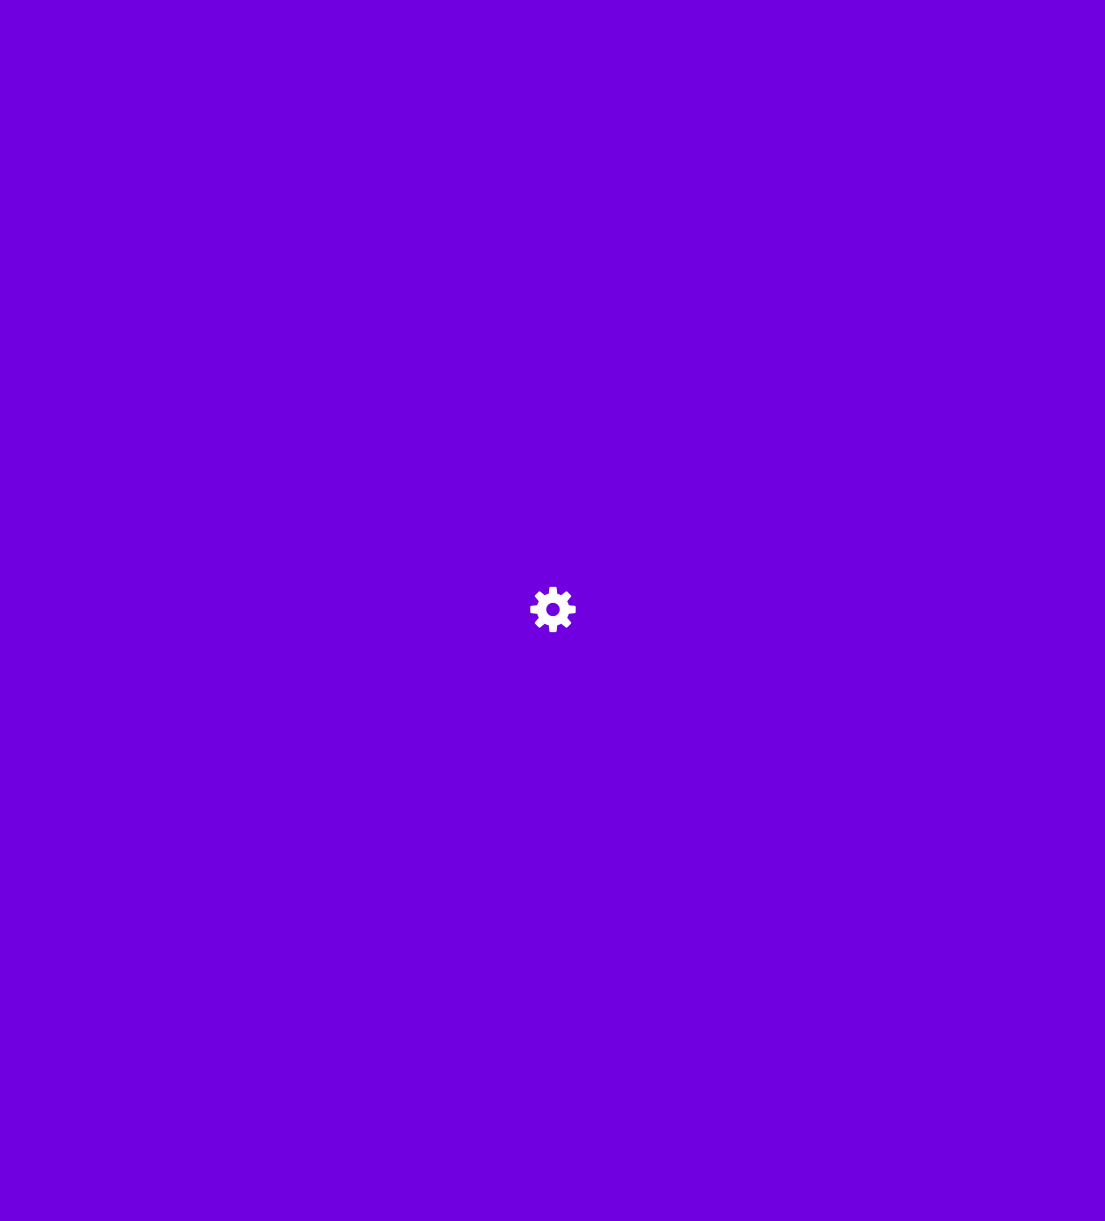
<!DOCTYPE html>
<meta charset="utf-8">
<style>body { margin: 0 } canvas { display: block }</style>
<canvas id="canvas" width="1105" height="1221"></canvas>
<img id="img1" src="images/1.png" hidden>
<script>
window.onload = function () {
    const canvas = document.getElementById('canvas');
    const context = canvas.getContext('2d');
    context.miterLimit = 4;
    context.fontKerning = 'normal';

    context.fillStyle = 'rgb(112, 0, 224)';
    context.fillRect(0, 0, 1105, 1221);
    context.drawImage(document.getElementById('img1'), 530, 586, 46, 47);
};
</script>
